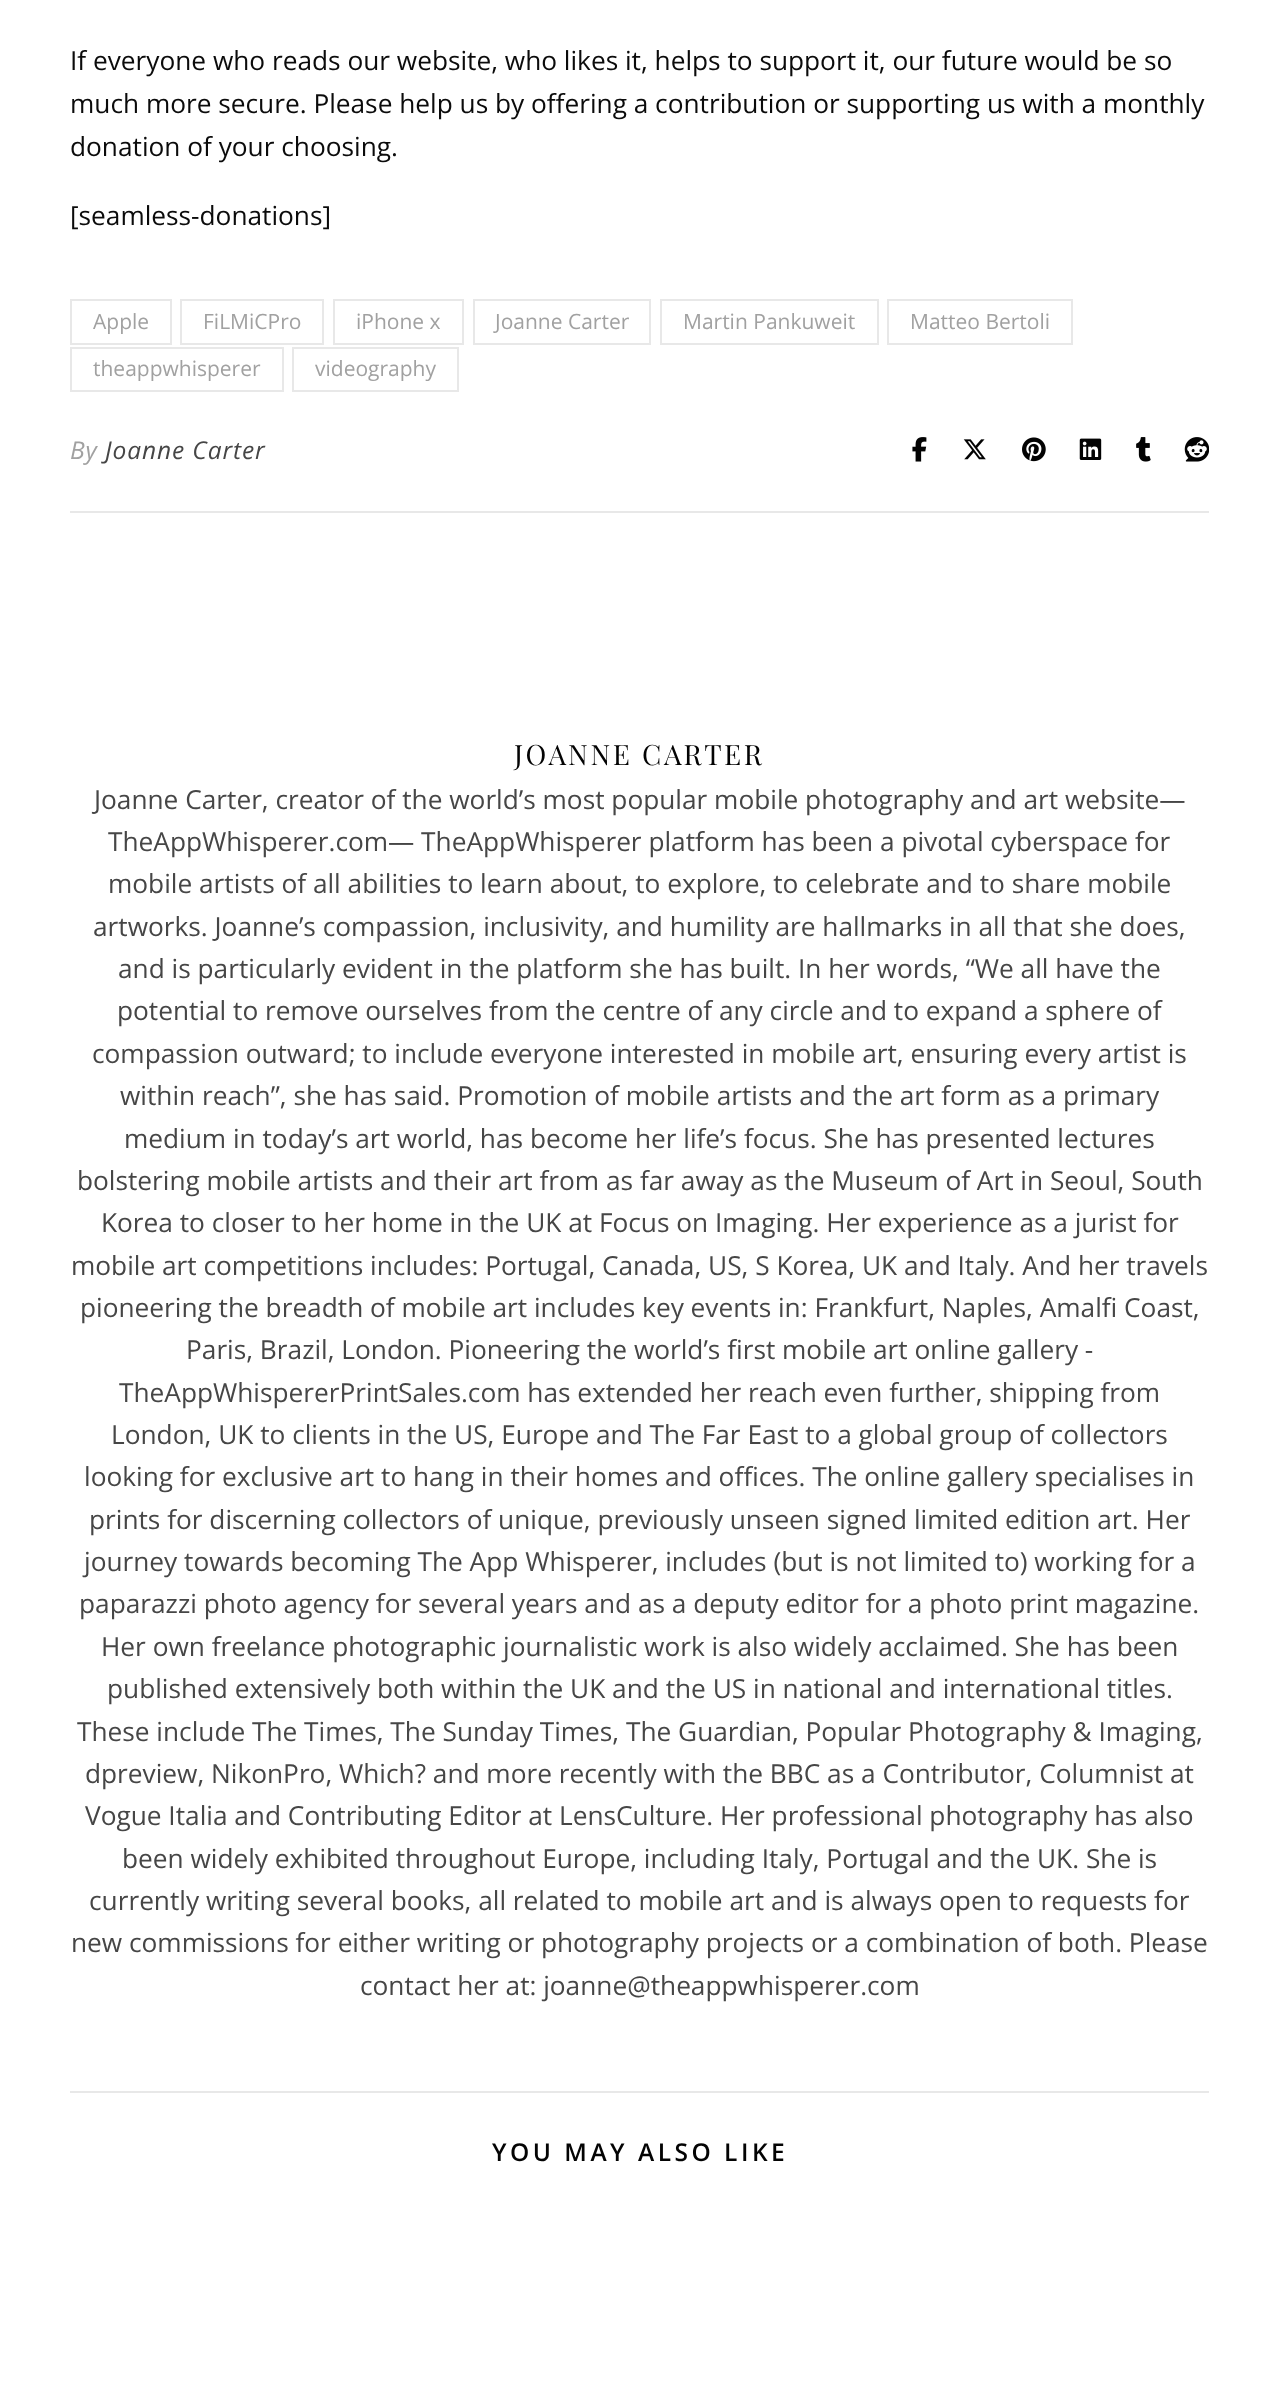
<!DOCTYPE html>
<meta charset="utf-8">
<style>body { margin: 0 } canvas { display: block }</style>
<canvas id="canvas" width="1279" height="2383"></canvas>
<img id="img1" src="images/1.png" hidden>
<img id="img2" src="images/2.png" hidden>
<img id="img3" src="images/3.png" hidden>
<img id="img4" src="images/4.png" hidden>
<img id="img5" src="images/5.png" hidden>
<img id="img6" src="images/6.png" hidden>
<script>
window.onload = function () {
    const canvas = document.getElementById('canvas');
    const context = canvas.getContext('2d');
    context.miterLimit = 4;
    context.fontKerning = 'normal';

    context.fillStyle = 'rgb(255, 255, 255)';
    context.fillRect(0, 0, 1279, 2383);
    context.fillStyle = 'rgb(232, 232, 232)';
    context.fillRect(70, 511, 1139, 2);
    context.strokeStyle = 'rgb(232, 232, 232)';
    context.lineWidth = 2;
    context.strokeRect(71, 300, 100, 44);
    context.strokeRect(181, 300, 142, 44);
    context.strokeRect(334, 300, 129, 44);
    context.strokeRect(474, 300, 176, 44);
    context.strokeRect(661, 300, 217, 44);
    context.strokeRect(888, 300, 184, 44);
    context.strokeRect(71, 348, 212, 43);
    context.strokeRect(293, 348, 165, 43);
    context.drawImage(document.getElementById('img1'), 912, 437, 15, 25);
    context.drawImage(document.getElementById('img2'), 963, 439, 23, 21);
    context.drawImage(document.getElementById('img3'), 1022, 437, 24, 25);
    context.drawImage(document.getElementById('img4'), 1079, 438, 23, 22);
    context.drawImage(document.getElementById('img5'), 1136, 437, 15, 25);
    context.drawImage(document.getElementById('img6'), 1184, 437, 25, 25);
    context.fillRect(70, 2091, 1139, 2);
    context.font = '26.25px Open Sans';
    context.fillStyle = 'rgb(11, 11, 11)';
    context.fillText('If everyone who reads our website, who likes it, helps to support it, our future would be so', 70, 70);
    context.fillText('much more secure. Please help us by offering a contribution or supporting us with a monthly', 70, 113);
    context.fillText('donation of your choosing.', 70, 156);
    context.fillText('[seamless-donations]', 70, 225);
    context.font = '21px Open Sans';
    context.fillStyle = 'rgb(161, 161, 161)';
    context.fillText('Apple', 93, 329);
    context.fillText('FiLMiCPro', 203, 329);
    context.fillText('iPhone x', 356, 329);
    context.fillText('Joanne Carter', 495, 329);
    context.fillText('Martin Pankuweit', 683, 329);
    context.fillText('Matteo Bertoli', 910, 329);
    context.fillText('theappwhisperer', 93, 376);
    context.fillText('videography', 315, 376);
    context.letterSpacing = '0.9px';
    context.font = 'italic 24.5px Open Sans';
    context.fillText('By', 70, 459);
    context.fillStyle = 'rgb(70, 70, 70)';
    context.fillText('Joanne Carter', 105, 459);
    context.letterSpacing = '2.6px';
    context.font = '28px Playfair Display';
    context.fillStyle = 'rgb(3, 3, 3)';
    context.fillText('JOANNE CARTER', 514, 765);
    context.letterSpacing = '0px';
    context.font = '26.25px Open Sans';
    context.fillStyle = 'rgb(70, 70, 70)';
    context.fillText('Joanne Carter, creator of the world’s most popular mobile photography and art website—', 94, 809);
    context.fillText('TheAppWhisperer.com— TheAppWhisperer platform has been a pivotal cyberspace for', 108, 851);
    context.fillText('mobile artists of all abilities to learn about, to explore, to celebrate and to share mobile', 108, 893);
    context.fillText('artworks. Joanne’s compassion, inclusivity, and humility are hallmarks in all that she does,', 93, 936);
    context.fillText('and is particularly evident in the platform she has built. In her words, “We all have the', 118, 978);
    context.fillText('potential to remove ourselves from the centre of any circle and to expand a sphere of', 117, 1020);
    context.fillText('compassion outward; to include everyone interested in mobile art, ensuring every artist is', 92, 1063);
    context.fillText('within reach”, she has said. Promotion of mobile artists and the art form as a primary', 120, 1105);
    context.fillText('medium in today’s art world, has become her life’s focus. She has presented lectures', 124, 1148);
    context.fillText('bolstering mobile artists and their art from as far away as the Museum of Art in Seoul, South', 77, 1190);
    context.fillText('Korea to closer to her home in the UK at Focus on Imaging. Her experience as a jurist for', 101, 1232);
    context.fillText('mobile art competitions includes: Portugal, Canada, US, S Korea, UK and Italy. And her travels', 71, 1275);
    context.fillText('pioneering the breadth of mobile art includes key events in: Frankfurt, Naples, Amalfi Coast,', 80, 1317);
    context.fillText('Paris, Brazil, London. Pioneering the world’s first mobile art online gallery -', 186, 1359);
    context.fillText('TheAppWhispererPrintSales.com has extended her reach even further, shipping from', 119, 1402);
    context.fillText('London, UK to clients in the US, Europe and The Far East to a global group of collectors', 111, 1444);
    context.fillText('looking for exclusive art to hang in their homes and offices. The online gallery specialises in', 84, 1486);
    context.fillText('prints for discerning collectors of unique, previously unseen signed limited edition art. Her', 89, 1529);
    context.fillText('journey towards becoming The App Whisperer, includes (but is not limited to) working for a', 84, 1571);
    context.fillText('paparazzi photo agency for several years and as a deputy editor for a photo print magazine.', 79, 1613);
    context.fillText('Her own freelance photographic journalistic work is also widely acclaimed. She has been', 101, 1656);
    context.fillText('published extensively both within the UK and the US in national and international titles.', 107, 1698);
    context.fillText('These include The Times, The Sunday Times, The Guardian, Popular Photography & Imaging,', 77, 1741);
    context.fillText('dpreview, NikonPro, Which? and more recently with the BBC as a Contributor, Columnist at', 85, 1783);
    context.fillText('Vogue Italia and Contributing Editor at LensCulture. Her professional photography has also', 85, 1825);
    context.fillText('been widely exhibited throughout Europe, including Italy, Portugal and the UK. She is', 122, 1868);
    context.fillText('currently writing several books, all related to mobile art and is always open to requests for', 89, 1910);
    context.fillText('new commissions for either writing or photography projects or a combination of both. Please', 71, 1952);
    context.fillText('contact her at: joanne@theappwhisperer.com', 360, 1995);
    context.letterSpacing = '3.5px';
    context.font = '600 24.5px Open Sans';
    context.fillStyle = 'rgb(3, 3, 3)';
    context.fillText('YOU MAY ALSO LIKE', 492, 2161);
};
</script>
